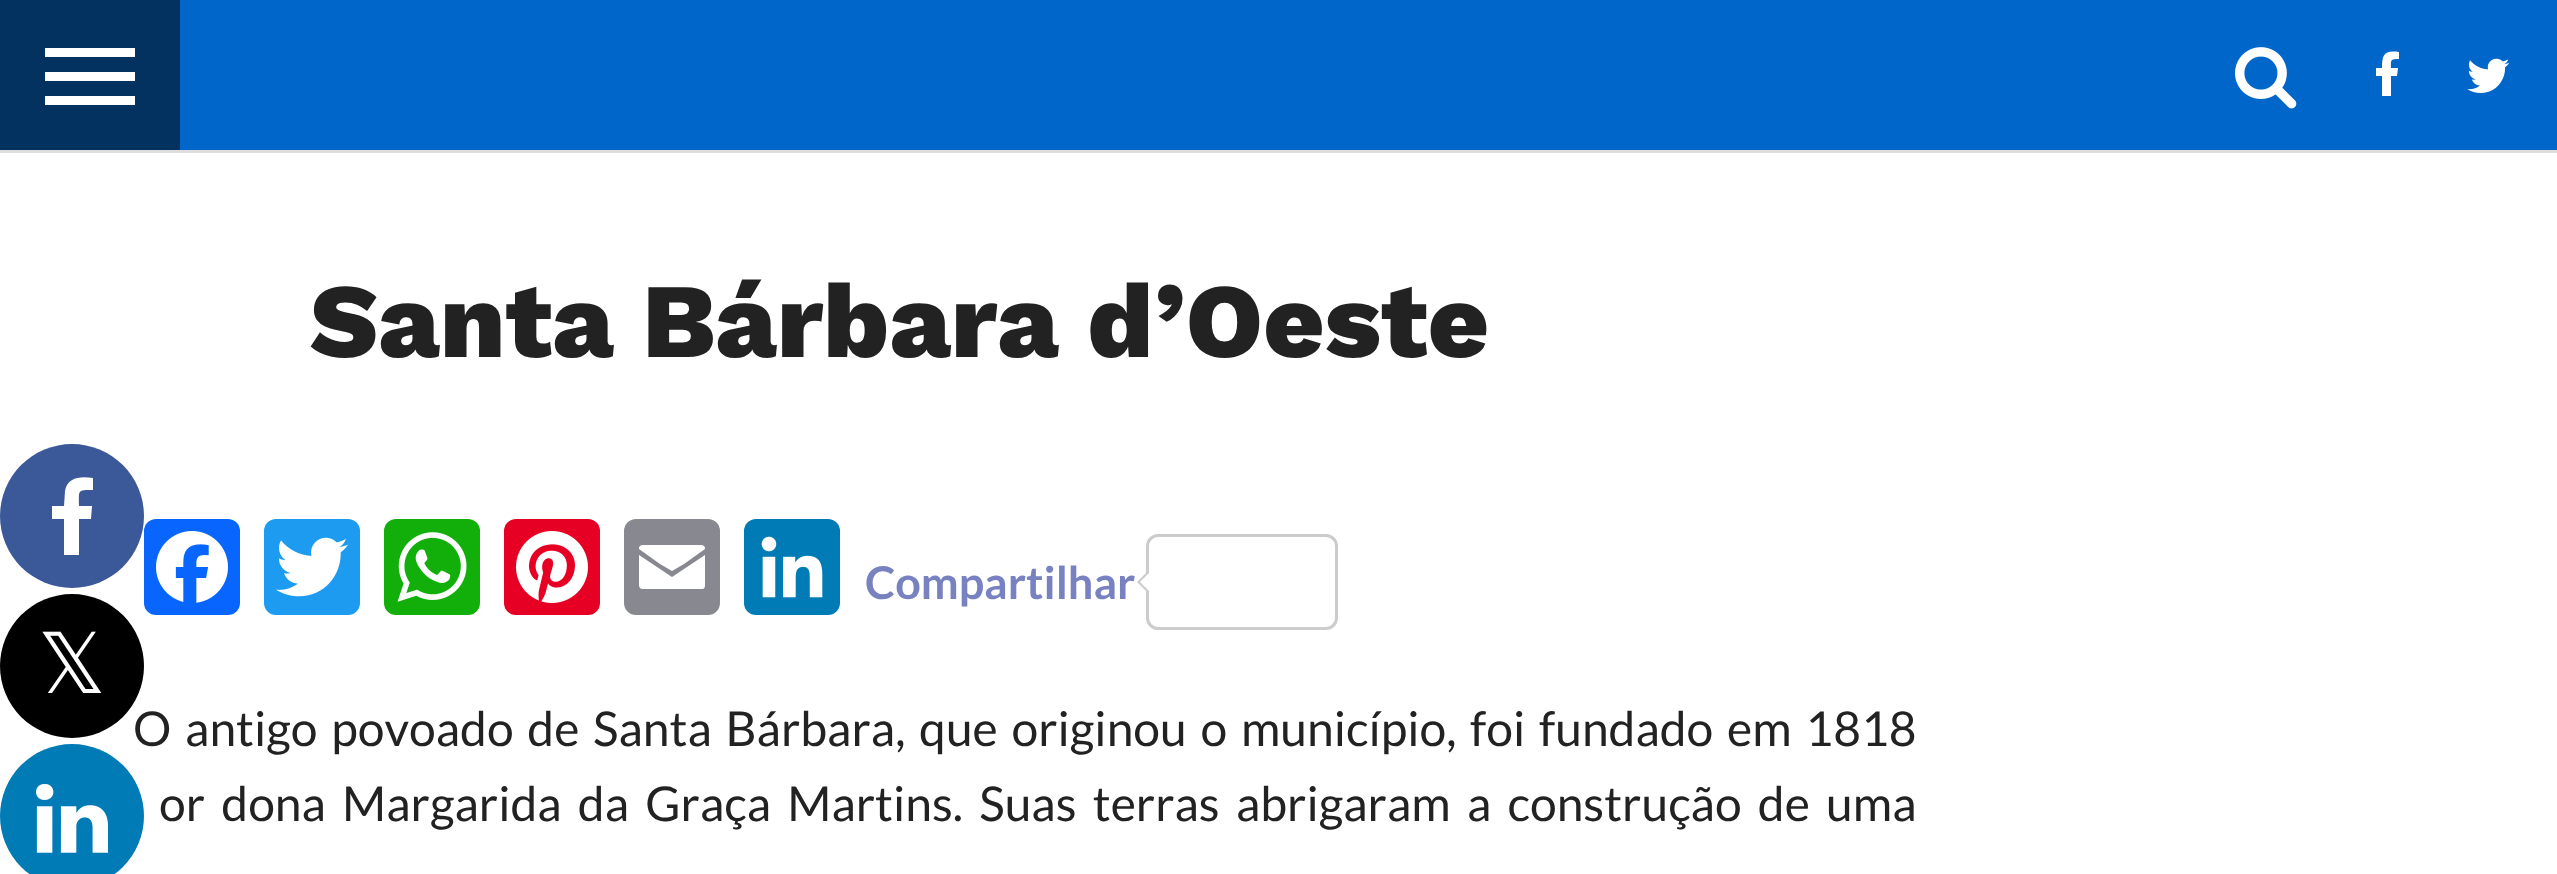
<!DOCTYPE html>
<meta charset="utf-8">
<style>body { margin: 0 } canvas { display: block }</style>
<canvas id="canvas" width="2557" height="874"></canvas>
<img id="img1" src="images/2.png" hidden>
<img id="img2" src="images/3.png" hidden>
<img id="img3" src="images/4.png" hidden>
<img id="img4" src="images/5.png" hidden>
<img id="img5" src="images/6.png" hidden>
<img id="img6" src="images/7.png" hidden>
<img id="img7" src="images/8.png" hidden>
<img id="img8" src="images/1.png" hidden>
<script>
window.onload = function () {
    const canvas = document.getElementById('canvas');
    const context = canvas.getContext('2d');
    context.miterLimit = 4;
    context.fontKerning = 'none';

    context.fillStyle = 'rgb(255, 255, 255)';
    context.fillRect(0, 0, 2557, 874);
    context.fillStyle = 'rgb(59, 89, 152)';
    context.beginPath();
    context.arc(72, 516, 72, 0, 2 * Math.PI);
    context.fill();
    context.fillStyle = 'rgb(255, 255, 255)';
    context.beginPath();
    context.moveTo(93, 478);
    context.lineTo(93, 490);
    context.bezierCurveTo(77, 490, 79, 490, 79, 506);
    context.lineTo(92, 506);
    context.lineTo(91, 519);
    context.lineTo(79, 519);
    context.lineTo(79, 555);
    context.lineTo(64, 555);
    context.lineTo(64, 519);
    context.lineTo(52, 519);
    context.lineTo(52, 506);
    context.lineTo(64, 506);
    context.lineTo(65, 491);
    context.bezierCurveTo(67, 477, 81, 476, 93, 478);
    context.closePath();
    context.fill();
    context.fillStyle = 'rgb(0, 102, 202)';
    context.fillRect(180, 0, 2377, 150);
    context.fillStyle = 'rgb(221, 221, 221)';
    context.fillRect(0, 150, 2557, 3);
    context.fillStyle = 'rgb(3, 50, 96)';
    context.fillRect(0, 0, 180, 150);
    context.fillStyle = 'rgb(255, 255, 255)';
    context.fillRect(45, 48, 90, 9);
    context.fillRect(45, 72, 90, 9);
    context.fillRect(45, 96, 90, 9);
    context.drawImage(document.getElementById('img1'), 2235, 47, 62, 62);
    context.beginPath();
    context.moveTo(2399, 52);
    context.lineTo(2399, 59);
    context.bezierCurveTo(2390, 59, 2391, 60, 2391, 68);
    context.lineTo(2398, 68);
    context.lineTo(2397, 76);
    context.lineTo(2391, 76);
    context.lineTo(2391, 96);
    context.lineTo(2382, 96);
    context.lineTo(2382, 76);
    context.lineTo(2376, 76);
    context.lineTo(2376, 68);
    context.lineTo(2382, 68);
    context.bezierCurveTo(2382, 55, 2384, 50, 2399, 52);
    context.closePath();
    context.fill();
    context.drawImage(document.getElementById('img2'), 2467, 58, 43, 35);
    context.fillStyle = 'rgb(8, 102, 255)';
    context.beginPath();
    context.roundRect(144, 519, 96, 96, 12);
    context.fill();
    context.drawImage(document.getElementById('img3'), 156, 531, 72, 72);
    context.fillStyle = 'rgb(29, 155, 240)';
    context.beginPath();
    context.roundRect(264, 519, 96, 96, 12);
    context.fill();
    context.drawImage(document.getElementById('img4'), 276, 537, 72, 60);
    context.fillStyle = 'rgb(18, 175, 10)';
    context.beginPath();
    context.roundRect(384, 519, 96, 96, 12);
    context.fill();
    context.drawImage(document.getElementById('img5'), 397, 532, 70, 70);
    context.fillStyle = 'rgb(230, 0, 35)';
    context.beginPath();
    context.roundRect(504, 519, 96, 96, 12);
    context.fill();
    context.drawImage(document.getElementById('img6'), 516, 531, 72, 72);
    context.fillStyle = 'rgb(136, 137, 144)';
    context.beginPath();
    context.roundRect(624, 519, 96, 96, 12);
    context.fill();
    context.fillStyle = 'rgb(255, 255, 255)';
    context.beginPath();
    context.moveTo(705, 584);
    context.lineTo(705, 555);
    context.lineTo(672, 577);
    context.lineTo(639, 555);
    context.lineTo(639, 584);
    context.bezierCurveTo(639, 588, 640, 589, 644, 589);
    context.lineTo(700, 589);
    context.bezierCurveTo(704, 589, 705, 589, 705, 584);
    context.moveTo(705, 549);
    context.bezierCurveTo(705, 546, 704, 545, 700, 545);
    context.lineTo(644, 545);
    context.bezierCurveTo(640, 545, 639, 546, 639, 549);
    context.lineTo(660, 564);
    context.lineTo(672, 571);
    context.lineTo(684, 564);
    context.closePath();
    context.fill();
    context.fillStyle = 'rgb(0, 123, 181)';
    context.beginPath();
    context.roundRect(744, 519, 96, 96, 12);
    context.fill();
    context.drawImage(document.getElementById('img7'), 761, 536, 62, 62);
    context.beginPath();
    context.roundRect(1147.5, 535.5, 189, 93, 10.5);
    context.strokeStyle = 'rgb(204, 204, 204)';
    context.lineWidth = 3;
    context.stroke();
    context.fillStyle = 'rgb(204, 204, 204)';
    context.beginPath();
    context.moveTo(1149, 570);
    context.lineTo(1149, 594);
    context.lineTo(1137, 582);
    context.closePath();
    context.fill();
    context.fillStyle = 'rgb(255, 255, 255)';
    context.beginPath();
    context.moveTo(1152, 570);
    context.lineTo(1152, 594);
    context.lineTo(1140, 582);
    context.closePath();
    context.fill();
    context.font = '800 105.6px Work Sans';
    context.fillStyle = 'rgb(34, 34, 34)';
    context.fillText('Santa Bárbara d’Oeste', 310, 357);
    context.font = 'bold 45px Lato';
    context.fillStyle = 'rgb(121, 130, 193)';
    context.fillText('Compartilhar', 865, 599);
    context.wordSpacing = '4.5px';
    context.font = '48px Lato';
    context.fillStyle = 'rgb(34, 34, 34)';
    context.fillText('O antigo povoado de Santa Bárbara, que originou o município, foi fundado em 1818', 133, 746);
    context.fillStyle = 'rgb(0, 0, 0)';
    context.beginPath();
    context.arc(72, 666, 72, 0, 2 * Math.PI);
    context.fill();
    context.wordSpacing = '0px';
    context.font = '84px DejaVu Sans';
    context.fillStyle = 'rgb(255, 255, 255)';
    context.fillText('𝕏', 38, 693);
    context.fillStyle = 'rgb(0, 123, 182)';
    context.beginPath();
    context.arc(72, 816, 72, 0, 2 * Math.PI);
    context.fill();
    context.drawImage(document.getElementById('img8'), 36, 783, 72, 70);
    context.wordSpacing = '7px';
    context.font = '48px Lato';
    context.fillStyle = 'rgb(34, 34, 34)';
    context.fillText('or dona Margarida da Graça Martins. Suas terras abrigaram a construção de uma', 159, 821);
};
</script>
